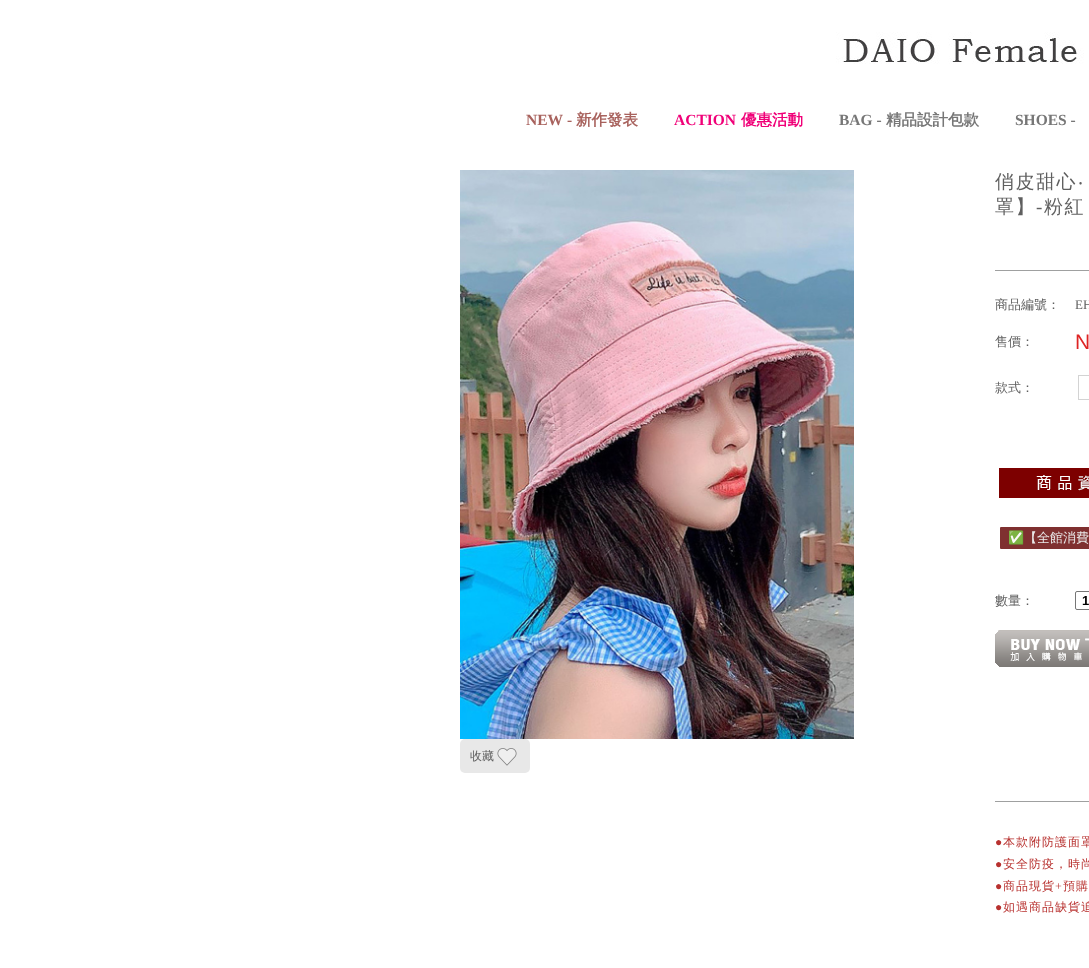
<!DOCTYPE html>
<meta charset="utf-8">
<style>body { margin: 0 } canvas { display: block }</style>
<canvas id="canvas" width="1089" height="968"></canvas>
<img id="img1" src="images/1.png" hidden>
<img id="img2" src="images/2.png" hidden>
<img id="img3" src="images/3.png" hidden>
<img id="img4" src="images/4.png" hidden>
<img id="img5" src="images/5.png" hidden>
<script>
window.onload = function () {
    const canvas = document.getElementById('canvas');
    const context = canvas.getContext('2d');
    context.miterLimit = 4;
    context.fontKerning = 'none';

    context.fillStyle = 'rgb(255, 255, 255)';
    context.fillRect(0, 0, 1089, 968);
    context.drawImage(document.getElementById('img1'), 836, 32, 248, 32);
    context.drawImage(document.getElementById('img2'), 460, 170, 394, 569);
    context.fillStyle = 'rgb(232, 232, 232)';
    context.beginPath();
    context.roundRect(460, 739, 70, 34, 5);
    context.fill();
    context.drawImage(document.getElementById('img3'), 497, 748, 20, 18);
    context.fillStyle = 'rgb(159, 160, 160)';
    context.fillRect(995, 270, 94, 1);
    context.strokeStyle = 'rgb(211, 211, 211)';
    context.strokeRect(1078.5, 375.5, 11, 24);
    context.drawImage(document.getElementById('img4'), 999, 468, 90, 30);
    context.fillStyle = 'rgb(127, 48, 48)';
    context.beginPath();
    context.roundRect(1000, 527, 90, 22, 1);
    context.fill();
    context.beginPath();
    context.roundRect(1075.5, 591.5, 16, 18, 1.5);
    context.strokeStyle = 'rgb(118, 118, 118)';
    context.stroke();
    context.drawImage(document.getElementById('img5'), 995, 630, 94, 37);
    context.fillStyle = 'rgb(159, 160, 160)';
    context.fillRect(995, 801, 94, 1);
    context.font = 'bold 15.5px Liberation Serif';
    context.fillStyle = 'rgb(168, 98, 93)';
    context.fillText('NEW -', 526, 125);
    context.font = 'bold 15.5px WenQuanYi Zen Hei';
    context.fillText('新作發表', 576, 125);
    context.font = 'bold 15.5px Liberation Serif';
    context.fillStyle = 'rgb(240, 0, 120)';
    context.fillText('ACTION', 674, 125);
    context.font = 'bold 15.5px WenQuanYi Zen Hei';
    context.fillText('優惠活動', 741, 125);
    context.font = 'bold 15.5px Liberation Serif';
    context.fillStyle = 'rgb(119, 119, 119)';
    context.fillText('BAG -', 839, 125);
    context.font = 'bold 15.5px WenQuanYi Zen Hei';
    context.fillText('精品設計包款', 886, 125);
    context.font = 'bold 15.5px Liberation Serif';
    context.fillText('SHOES -', 1015, 125);
    context.font = '500 12px WenQuanYi Zen Hei';
    context.fillStyle = 'rgb(95, 95, 95)';
    context.fillText('收藏', 470, 760);
    context.letterSpacing = '1.5px';
    context.font = '500 19px WenQuanYi Zen Hei';
    context.fillText('俏皮甜心', 995, 188);
    context.font = '19px Noto Sans';
    context.fillText('‧', 1078, 188);
    context.font = '500 19px WenQuanYi Zen Hei';
    context.fillText('罩】', 995, 213);
    context.font = '19px Liberation Serif';
    context.fillText('-', 1036, 213);
    context.font = '500 19px WenQuanYi Zen Hei';
    context.fillText('粉紅', 1044, 213);
    context.letterSpacing = '0px';
    context.font = '500 13px WenQuanYi Zen Hei';
    context.fillText('商品編號：', 995, 309);
    context.font = '13px Liberation Serif';
    context.fillText('EH', 1075, 309);
    context.font = '500 13px WenQuanYi Zen Hei';
    context.fillText('售價：', 995, 346);
    context.letterSpacing = '1px';
    context.font = '21px Liberation Sans';
    context.fillStyle = 'rgb(222, 36, 36)';
    context.fillText('N', 1075, 349);
    context.letterSpacing = '0px';
    context.font = '500 13px WenQuanYi Zen Hei';
    context.fillStyle = 'rgb(95, 95, 95)';
    context.fillText('款式：', 995, 392);
    context.font = '13px Noto Color Emoji';
    context.fillStyle = 'rgb(234, 234, 234)';
    context.fillText('✅', 1008, 542);
    context.font = '500 13px WenQuanYi Zen Hei';
    context.fillText('【全館消費', 1024, 542);
    context.fillStyle = 'rgb(95, 95, 95)';
    context.fillText('數量：', 995, 605);
    context.font = 'bold 13px Liberation Sans';
    context.fillStyle = 'rgb(0, 0, 0)';
    context.fillText('1', 1082, 605);
    context.letterSpacing = '1px';
    context.font = '12px Liberation Serif';
    context.fillStyle = 'rgb(184, 49, 47)';
    context.fillText('●', 995, 846);
    context.font = '500 12px WenQuanYi Zen Hei';
    context.fillText('本款附防護面罩', 1003, 846);
    context.font = '12px Liberation Serif';
    context.fillText('●', 995, 868);
    context.font = '500 12px WenQuanYi Zen Hei';
    context.fillText('安全防疫，時尚', 1003, 868);
    context.font = '12px Liberation Serif';
    context.fillText('●', 995, 890);
    context.font = '500 12px WenQuanYi Zen Hei';
    context.fillText('商品現貨', 1003, 890);
    context.font = '12px Liberation Serif';
    context.fillText('+', 1055, 890);
    context.font = '500 12px WenQuanYi Zen Hei';
    context.fillText('預購', 1063, 890);
    context.font = '12px Liberation Serif';
    context.fillText('●', 995, 911);
    context.font = '500 12px WenQuanYi Zen Hei';
    context.fillText('如遇商品缺貨追', 1003, 911);
};
</script>
